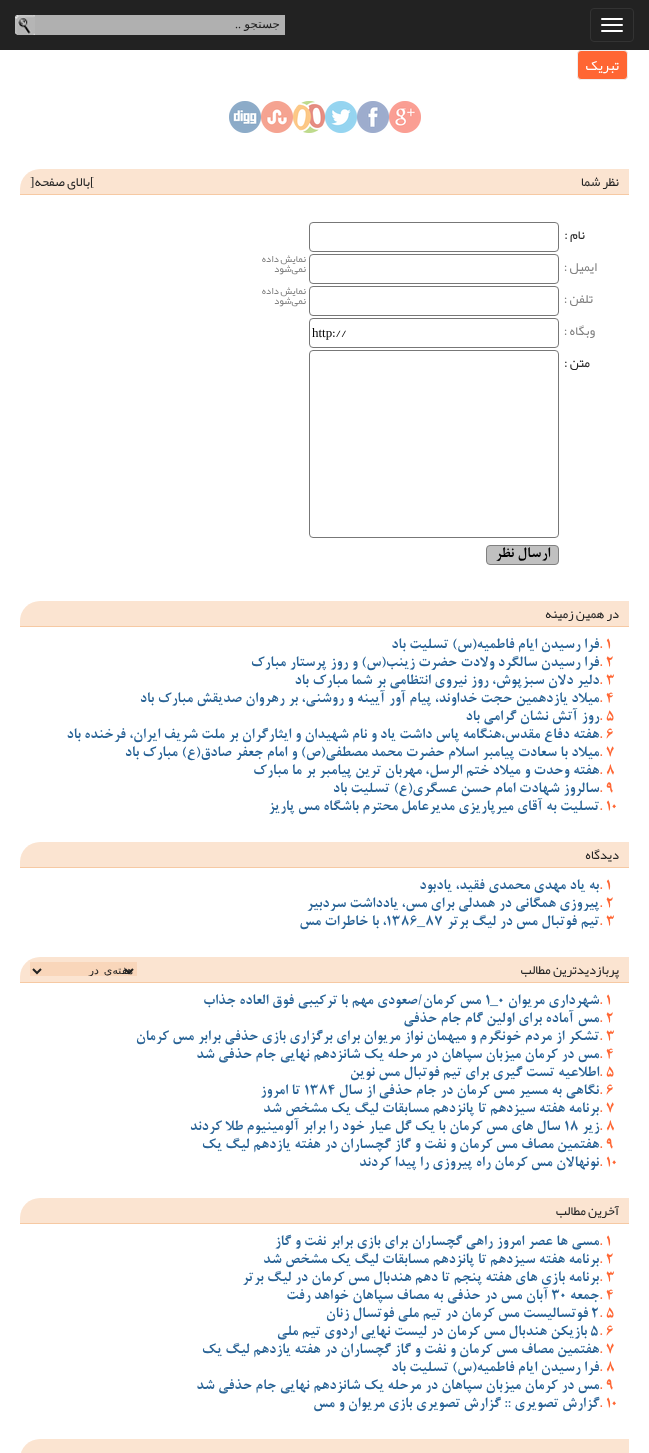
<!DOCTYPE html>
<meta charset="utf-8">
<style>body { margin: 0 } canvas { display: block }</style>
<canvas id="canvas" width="649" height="1453"></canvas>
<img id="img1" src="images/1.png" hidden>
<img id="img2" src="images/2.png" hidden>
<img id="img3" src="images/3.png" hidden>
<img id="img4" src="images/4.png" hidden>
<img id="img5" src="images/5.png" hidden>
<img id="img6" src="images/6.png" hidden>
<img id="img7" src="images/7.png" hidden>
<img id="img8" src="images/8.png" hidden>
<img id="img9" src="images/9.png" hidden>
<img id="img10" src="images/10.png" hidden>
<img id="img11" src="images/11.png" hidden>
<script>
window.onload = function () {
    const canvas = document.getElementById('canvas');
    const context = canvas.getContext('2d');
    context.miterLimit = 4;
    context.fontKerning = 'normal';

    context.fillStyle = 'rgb(255, 255, 255)';
    context.fillRect(0, 0, 649, 1453);
    context.fillStyle = 'rgb(34, 34, 34)';
    context.fillRect(0, 0, 649, 50);
    context.beginPath();
    context.roundRect(590.5, 8.5, 43, 33, 3.5);
    context.strokeStyle = 'rgb(51, 51, 51)';
    context.stroke();
    context.fillStyle = 'rgb(255, 255, 255)';
    context.beginPath();
    context.roundRect(601, 18, 22, 2, 1);
    context.fill();
    context.beginPath();
    context.roundRect(601, 24, 22, 2, 1);
    context.fill();
    context.beginPath();
    context.roundRect(601, 30, 22, 2, 1);
    context.fill();
    context.fillStyle = 'rgb(176, 176, 176)';
    context.fillRect(35, 15, 250, 20);
    context.drawImage(document.getElementById('img1'), 15, 15, 20, 20);
    context.fillStyle = 'rgb(255, 102, 51)';
    context.beginPath();
    context.roundRect(577.5, 50.5, 50, 29, 3.5);
    context.fill();
    context.strokeStyle = 'rgb(238, 238, 238)';
    context.stroke();
    context.drawImage(document.getElementById('img2'), 389, 101, 32, 32);
    context.drawImage(document.getElementById('img3'), 357, 101, 32, 32);
    context.drawImage(document.getElementById('img4'), 325, 101, 32, 32);
    context.drawImage(document.getElementById('img5'), 293, 101, 32, 32);
    context.drawImage(document.getElementById('img6'), 261, 101, 32, 32);
    context.drawImage(document.getElementById('img7'), 229, 101, 32, 32);
    context.drawImage(document.getElementById('img8'), 20, 169, 609, 25);
    context.fillStyle = 'rgb(246, 201, 163)';
    context.fillRect(20, 194, 609, 1);
    context.beginPath();
    context.roundRect(309.5, 222.5, 249, 29, 3.5);
    context.strokeStyle = 'rgb(119, 119, 119)';
    context.stroke();
    context.beginPath();
    context.roundRect(309.5, 254.5, 249, 29, 3.5);
    context.stroke();
    context.beginPath();
    context.roundRect(309.5, 286.5, 249, 29, 3.5);
    context.stroke();
    context.beginPath();
    context.roundRect(309.5, 318.5, 249, 29, 3.5);
    context.stroke();
    context.beginPath();
    context.roundRect(309.5, 350.5, 249, 187, 3.5);
    context.stroke();
    context.fillStyle = 'rgb(192, 192, 192)';
    context.beginPath();
    context.roundRect(486.5, 545.5, 72, 19, 3.5);
    context.fill();
    context.strokeStyle = 'rgb(128, 128, 128)';
    context.stroke();
    context.drawImage(document.getElementById('img9'), 20, 601, 609, 25);
    context.fillStyle = 'rgb(246, 201, 163)';
    context.fillRect(20, 626, 609, 1);
    context.drawImage(document.getElementById('img8'), 20, 842, 609, 25);
    context.fillRect(20, 867, 609, 1);
    context.drawImage(document.getElementById('img8'), 20, 957, 609, 25);
    context.fillRect(20, 982, 609, 1);
    context.drawImage(document.getElementById('img10'), 30, 962, 107, 14);
    context.beginPath();
    context.moveTo(125, 969);
    context.lineTo(129, 973);
    context.lineTo(133, 969);
    context.strokeStyle = 'rgb(34, 34, 34)';
    context.lineWidth = 2;
    context.stroke();
    context.drawImage(document.getElementById('img8'), 20, 1198, 609, 25);
    context.fillRect(20, 1223, 609, 1);
    context.drawImage(document.getElementById('img11'), 21, 1439, 608, 14);
    context.direction = 'rtl';
    context.font = '12px DejaVu Sans';
    context.fillStyle = 'rgb(34, 34, 34)';
    context.fillText('جستجو', 280, 28);
    context.font = '12px Liberation Serif';
    context.fillText('..', 241, 28);
    context.font = '14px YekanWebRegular';
    context.fillStyle = 'rgb(255, 255, 255)';
    context.fillText('تبریک', 619, 70);
    context.font = '13px YekanWebRegular';
    context.fillStyle = 'rgb(34, 34, 34)';
    context.fillText('نظر شما', 619, 186);
    context.direction = 'ltr';
    context.font = '13px Liberation Serif';
    context.fillText('[', 90, 186);
    context.direction = 'rtl';
    context.font = '13px YekanWebRegular';
    context.fillText('بالای صفحه', 90, 186);
    context.direction = 'ltr';
    context.font = '13px Liberation Serif';
    context.fillText(']', 30, 186);
    context.direction = 'rtl';
    context.font = '13px YekanWebRegular';
    context.fillText('نام‌ :', 585, 239);
    context.fillStyle = 'rgb(128, 128, 128)';
    context.fillText('ایمیل :', 597, 271);
    context.font = '10px YekanWebRegular';
    context.fillText('نمایش داده', 306, 262);
    context.fillText('نمی‌شود', 306, 272);
    context.font = '13px YekanWebRegular';
    context.fillText('تلفن :', 593, 303);
    context.font = '10px YekanWebRegular';
    context.fillText('نمایش داده', 306, 294);
    context.fillText('نمی‌شود', 306, 304);
    context.font = '13px YekanWebRegular';
    context.fillText('وبگاه‌ :', 595, 335);
    context.direction = 'ltr';
    context.fillStyle = 'rgb(0, 0, 0)';
    context.fillText('://', 332, 337);
    context.font = '13px Liberation Serif';
    context.fillText('http', 312, 337);
    context.direction = 'rtl';
    context.font = '13px YekanWebRegular';
    context.fillStyle = 'rgb(34, 34, 34)';
    context.fillText('متن :', 590, 367);
    context.font = 'bold 16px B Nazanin';
    context.fillStyle = 'rgb(0, 0, 0)';
    context.fillText('ارسال نظر', 550, 557);
    context.font = '13px YekanWebRegular';
    context.fillStyle = 'rgb(34, 34, 34)';
    context.fillText('در همین زمینه', 619, 618);
    context.direction = 'ltr';
    context.font = 'bold 16px B Nazanin';
    context.fillStyle = 'rgb(255, 102, 51)';
    context.fillText('. 1', 599, 648);
    context.direction = 'rtl';
    context.fillStyle = 'rgb(42, 100, 150)';
    context.fillText('فرا رسیدن ایام فاطمیه(س) تسلیت باد', 599, 648);
    context.direction = 'ltr';
    context.fillStyle = 'rgb(255, 102, 51)';
    context.fillText('. 2', 599, 666);
    context.direction = 'rtl';
    context.fillStyle = 'rgb(42, 100, 150)';
    context.fillText('فرا رسیدن سالگرد ولادت حضرت زینب(س) و روز پرستار مبارک', 599, 666);
    context.direction = 'ltr';
    context.fillStyle = 'rgb(255, 102, 51)';
    context.fillText('. 3', 599, 684);
    context.direction = 'rtl';
    context.fillStyle = 'rgb(42, 100, 150)';
    context.fillText('دلیر دلان سبزپوش، روز نیروی انتظامی بر شما مبارک باد', 599, 684);
    context.direction = 'ltr';
    context.fillStyle = 'rgb(255, 102, 51)';
    context.fillText('. 4', 599, 702);
    context.direction = 'rtl';
    context.fillStyle = 'rgb(42, 100, 150)';
    context.fillText('میلاد یازدهمین حجت خداوند، پیام آور آیینه و روشنی، بر رهروان صدیقش مبارک باد', 599, 702);
    context.direction = 'ltr';
    context.fillStyle = 'rgb(255, 102, 51)';
    context.fillText('. 5', 599, 720);
    context.direction = 'rtl';
    context.fillStyle = 'rgb(42, 100, 150)';
    context.fillText('روز آتش نشان گرامی باد', 599, 720);
    context.direction = 'ltr';
    context.fillStyle = 'rgb(255, 102, 51)';
    context.fillText('. 6', 599, 738);
    context.direction = 'rtl';
    context.fillStyle = 'rgb(42, 100, 150)';
    context.fillText('هفته دفاع مقدس،هنگامه پاس داشت یاد و نام شهیدان و ایثارگران بر ملت شریف ایران، فرخنده باد', 599, 738);
    context.direction = 'ltr';
    context.fillStyle = 'rgb(255, 102, 51)';
    context.fillText('. 7', 599, 756);
    context.direction = 'rtl';
    context.fillStyle = 'rgb(42, 100, 150)';
    context.fillText('میلاد با سعادت پیامبر اسلام حضرت محمد مصطفی(ص) و امام جعفر صادق(ع) مبارک باد', 599, 756);
    context.direction = 'ltr';
    context.fillStyle = 'rgb(255, 102, 51)';
    context.fillText('. 8', 599, 774);
    context.direction = 'rtl';
    context.fillStyle = 'rgb(42, 100, 150)';
    context.fillText('هفته وحدت و میلاد ختم الرسل، مهربان ترین پیامبر بر ما مبارک', 599, 774);
    context.direction = 'ltr';
    context.fillStyle = 'rgb(255, 102, 51)';
    context.fillText('. 9', 599, 792);
    context.direction = 'rtl';
    context.fillStyle = 'rgb(42, 100, 150)';
    context.fillText('سالروز شهادت امام حسن عسگری(ع) تسلیت باد', 599, 792);
    context.direction = 'ltr';
    context.fillStyle = 'rgb(255, 102, 51)';
    context.fillText('. 10', 599, 810);
    context.direction = 'rtl';
    context.fillStyle = 'rgb(42, 100, 150)';
    context.fillText('تسلیت به آقای میرپاریزی مدیرعامل محترم باشگاه مس پاریز', 599, 810);
    context.font = '13px YekanWebRegular';
    context.fillStyle = 'rgb(34, 34, 34)';
    context.fillText('دیدگاه', 619, 859);
    context.direction = 'ltr';
    context.font = 'bold 16px B Nazanin';
    context.fillStyle = 'rgb(255, 102, 51)';
    context.fillText('. 1', 599, 889);
    context.direction = 'rtl';
    context.fillStyle = 'rgb(42, 100, 150)';
    context.fillText('به یاد مهدی محمدی فقید، یادبود', 599, 889);
    context.direction = 'ltr';
    context.fillStyle = 'rgb(255, 102, 51)';
    context.fillText('. 2', 599, 907);
    context.direction = 'rtl';
    context.fillStyle = 'rgb(42, 100, 150)';
    context.fillText('پیروزی همگانی در همدلی برای مس، یادداشت سردبیر', 599, 907);
    context.direction = 'ltr';
    context.fillStyle = 'rgb(255, 102, 51)';
    context.fillText('. 3', 599, 925);
    context.direction = 'rtl';
    context.fillStyle = 'rgb(42, 100, 150)';
    context.fillText('تیم فوتبال مس در لیگ برتر', 599, 925);
    context.direction = 'ltr';
    context.fillText('87', 425, 925);
    context.fillText('1386', 386, 925);
    context.direction = 'rtl';
    context.fillText('، با خاطرات مس', 386, 925);
    context.direction = 'ltr';
    context.font = '16px Liberation Serif';
    context.fillText('_', 417, 925);
    context.direction = 'rtl';
    context.font = '13px YekanWebRegular';
    context.fillStyle = 'rgb(34, 34, 34)';
    context.fillText('پربازدیدترین‌ مطالب', 619, 974);
    context.font = '11px DejaVu Sans';
    context.fillText('هفته‌ی', 133, 974);
    context.save();
    context.beginPath();
    context.rect(46, 962, 87, 14);
    context.clip();
    context.fillText('در', 99, 974);
    context.restore();
    context.direction = 'ltr';
    context.font = 'bold 16px B Nazanin';
    context.fillStyle = 'rgb(255, 102, 51)';
    context.fillText('. 1', 599, 1004);
    context.direction = 'rtl';
    context.fillStyle = 'rgb(42, 100, 150)';
    context.fillText('شهرداری مریوان', 599, 1004);
    context.direction = 'ltr';
    context.fillText('0', 498, 1004);
    context.fillText('1', 485, 1004);
    context.direction = 'rtl';
    context.fillText('مس کرمان/صعودی مهم با ترکیبی فوق العاده جذاب', 481, 1004);
    context.direction = 'ltr';
    context.font = '16px Liberation Serif';
    context.fillText('_', 490, 1004);
    context.font = 'bold 16px B Nazanin';
    context.fillStyle = 'rgb(255, 102, 51)';
    context.fillText('. 2', 599, 1022);
    context.direction = 'rtl';
    context.fillStyle = 'rgb(42, 100, 150)';
    context.fillText('مس آماده برای اولین گام جام حذفی', 599, 1022);
    context.direction = 'ltr';
    context.fillStyle = 'rgb(255, 102, 51)';
    context.fillText('. 3', 599, 1040);
    context.direction = 'rtl';
    context.fillStyle = 'rgb(42, 100, 150)';
    context.fillText('تشکر از مردم خونگرم و میهمان نواز مریوان برای برگزاری بازی حذفی برابر مس کرمان', 599, 1040);
    context.direction = 'ltr';
    context.fillStyle = 'rgb(255, 102, 51)';
    context.fillText('. 4', 599, 1058);
    context.direction = 'rtl';
    context.fillStyle = 'rgb(42, 100, 150)';
    context.fillText('مس در کرمان میزبان سپاهان در مرحله یک شانزدهم نهایی جام حذفی شد', 599, 1058);
    context.direction = 'ltr';
    context.fillStyle = 'rgb(255, 102, 51)';
    context.fillText('. 5', 599, 1076);
    context.direction = 'rtl';
    context.fillStyle = 'rgb(42, 100, 150)';
    context.fillText('اطلاعیه تست گیری برای تیم فوتبال مس نوین', 599, 1076);
    context.direction = 'ltr';
    context.fillStyle = 'rgb(255, 102, 51)';
    context.fillText('. 6', 599, 1094);
    context.direction = 'rtl';
    context.fillStyle = 'rgb(42, 100, 150)';
    context.fillText('نگاهی به مسیر مس کرمان در جام حذفی از سال', 599, 1094);
    context.direction = 'ltr';
    context.fillText('1384', 304, 1094);
    context.direction = 'rtl';
    context.fillText('تا امروز', 300, 1094);
    context.direction = 'ltr';
    context.fillStyle = 'rgb(255, 102, 51)';
    context.fillText('. 7', 599, 1112);
    context.direction = 'rtl';
    context.fillStyle = 'rgb(42, 100, 150)';
    context.fillText('برنامه هفته سیزدهم تا پانزدهم مسابقات لیگ یک مشخص شد', 599, 1112);
    context.direction = 'ltr';
    context.fillStyle = 'rgb(255, 102, 51)';
    context.fillText('. 8', 599, 1130);
    context.direction = 'rtl';
    context.fillStyle = 'rgb(42, 100, 150)';
    context.fillText('زیر', 599, 1130);
    context.direction = 'ltr';
    context.fillText('18', 564, 1130);
    context.direction = 'rtl';
    context.fillText('سال های مس کرمان با یک گل عیار خود را برابر آلومینیوم طلا کردند', 560, 1130);
    context.direction = 'ltr';
    context.fillStyle = 'rgb(255, 102, 51)';
    context.fillText('. 9', 599, 1148);
    context.direction = 'rtl';
    context.fillStyle = 'rgb(42, 100, 150)';
    context.fillText('هفتمین مصاف مس کرمان و نفت و گاز گچساران در هفته یازدهم لیگ یک', 599, 1148);
    context.direction = 'ltr';
    context.fillStyle = 'rgb(255, 102, 51)';
    context.fillText('. 10', 599, 1166);
    context.direction = 'rtl';
    context.fillStyle = 'rgb(42, 100, 150)';
    context.fillText('نونهالان مس کرمان راه پیروزی را پیدا کردند', 599, 1166);
    context.font = '13px YekanWebRegular';
    context.fillStyle = 'rgb(34, 34, 34)';
    context.fillText('آخرین مطالب', 619, 1215);
    context.direction = 'ltr';
    context.font = 'bold 16px B Nazanin';
    context.fillStyle = 'rgb(255, 102, 51)';
    context.fillText('. 1', 599, 1245);
    context.direction = 'rtl';
    context.fillStyle = 'rgb(42, 100, 150)';
    context.fillText('مسی ها عصر امروز راهی گچساران برای بازی برابر نفت و گاز', 599, 1245);
    context.direction = 'ltr';
    context.fillStyle = 'rgb(255, 102, 51)';
    context.fillText('. 2', 599, 1263);
    context.direction = 'rtl';
    context.fillStyle = 'rgb(42, 100, 150)';
    context.fillText('برنامه هفته سیزدهم تا پانزدهم مسابقات لیگ یک مشخص شد', 599, 1263);
    context.direction = 'ltr';
    context.fillStyle = 'rgb(255, 102, 51)';
    context.fillText('. 3', 599, 1281);
    context.direction = 'rtl';
    context.fillStyle = 'rgb(42, 100, 150)';
    context.fillText('برنامه بازی های هفته پنجم تا دهم هندبال مس کرمان در لیگ برتر', 599, 1281);
    context.direction = 'ltr';
    context.fillStyle = 'rgb(255, 102, 51)';
    context.fillText('. 4', 599, 1299);
    context.direction = 'rtl';
    context.fillStyle = 'rgb(42, 100, 150)';
    context.fillText('جمعه', 599, 1299);
    context.direction = 'ltr';
    context.fillText('30', 551, 1299);
    context.direction = 'rtl';
    context.fillText('آبان مس در حذفی به مصاف سپاهان خواهد رفت', 548, 1299);
    context.direction = 'ltr';
    context.fillStyle = 'rgb(255, 102, 51)';
    context.fillText('. 5', 599, 1317);
    context.fillStyle = 'rgb(42, 100, 150)';
    context.fillText('2', 591, 1317);
    context.direction = 'rtl';
    context.fillText('فوتسالیست مس کرمان در تیم ملی فوتسال زنان', 588, 1317);
    context.direction = 'ltr';
    context.fillStyle = 'rgb(255, 102, 51)';
    context.fillText('. 6', 599, 1335);
    context.fillStyle = 'rgb(42, 100, 150)';
    context.fillText('5', 590, 1335);
    context.direction = 'rtl';
    context.fillText('بازیکن هندبال مس کرمان در لیست نهایی اردوی تیم ملی', 587, 1335);
    context.direction = 'ltr';
    context.fillStyle = 'rgb(255, 102, 51)';
    context.fillText('. 7', 599, 1353);
    context.direction = 'rtl';
    context.fillStyle = 'rgb(42, 100, 150)';
    context.fillText('هفتمین مصاف مس کرمان و نفت و گاز گچساران در هفته یازدهم لیگ یک', 599, 1353);
    context.direction = 'ltr';
    context.fillStyle = 'rgb(255, 102, 51)';
    context.fillText('. 8', 599, 1371);
    context.direction = 'rtl';
    context.fillStyle = 'rgb(42, 100, 150)';
    context.fillText('فرا رسیدن ایام فاطمیه(س) تسلیت باد', 599, 1371);
    context.direction = 'ltr';
    context.fillStyle = 'rgb(255, 102, 51)';
    context.fillText('. 9', 599, 1389);
    context.direction = 'rtl';
    context.fillStyle = 'rgb(42, 100, 150)';
    context.fillText('مس در کرمان میزبان سپاهان در مرحله یک شانزدهم نهایی جام حذفی شد', 599, 1389);
    context.direction = 'ltr';
    context.fillStyle = 'rgb(255, 102, 51)';
    context.fillText('. 10', 599, 1407);
    context.direction = 'rtl';
    context.fillStyle = 'rgb(42, 100, 150)';
    context.fillText('گزارش تصویری :: گزارش تصویری بازی مریوان و مس', 599, 1407);
};
</script>
